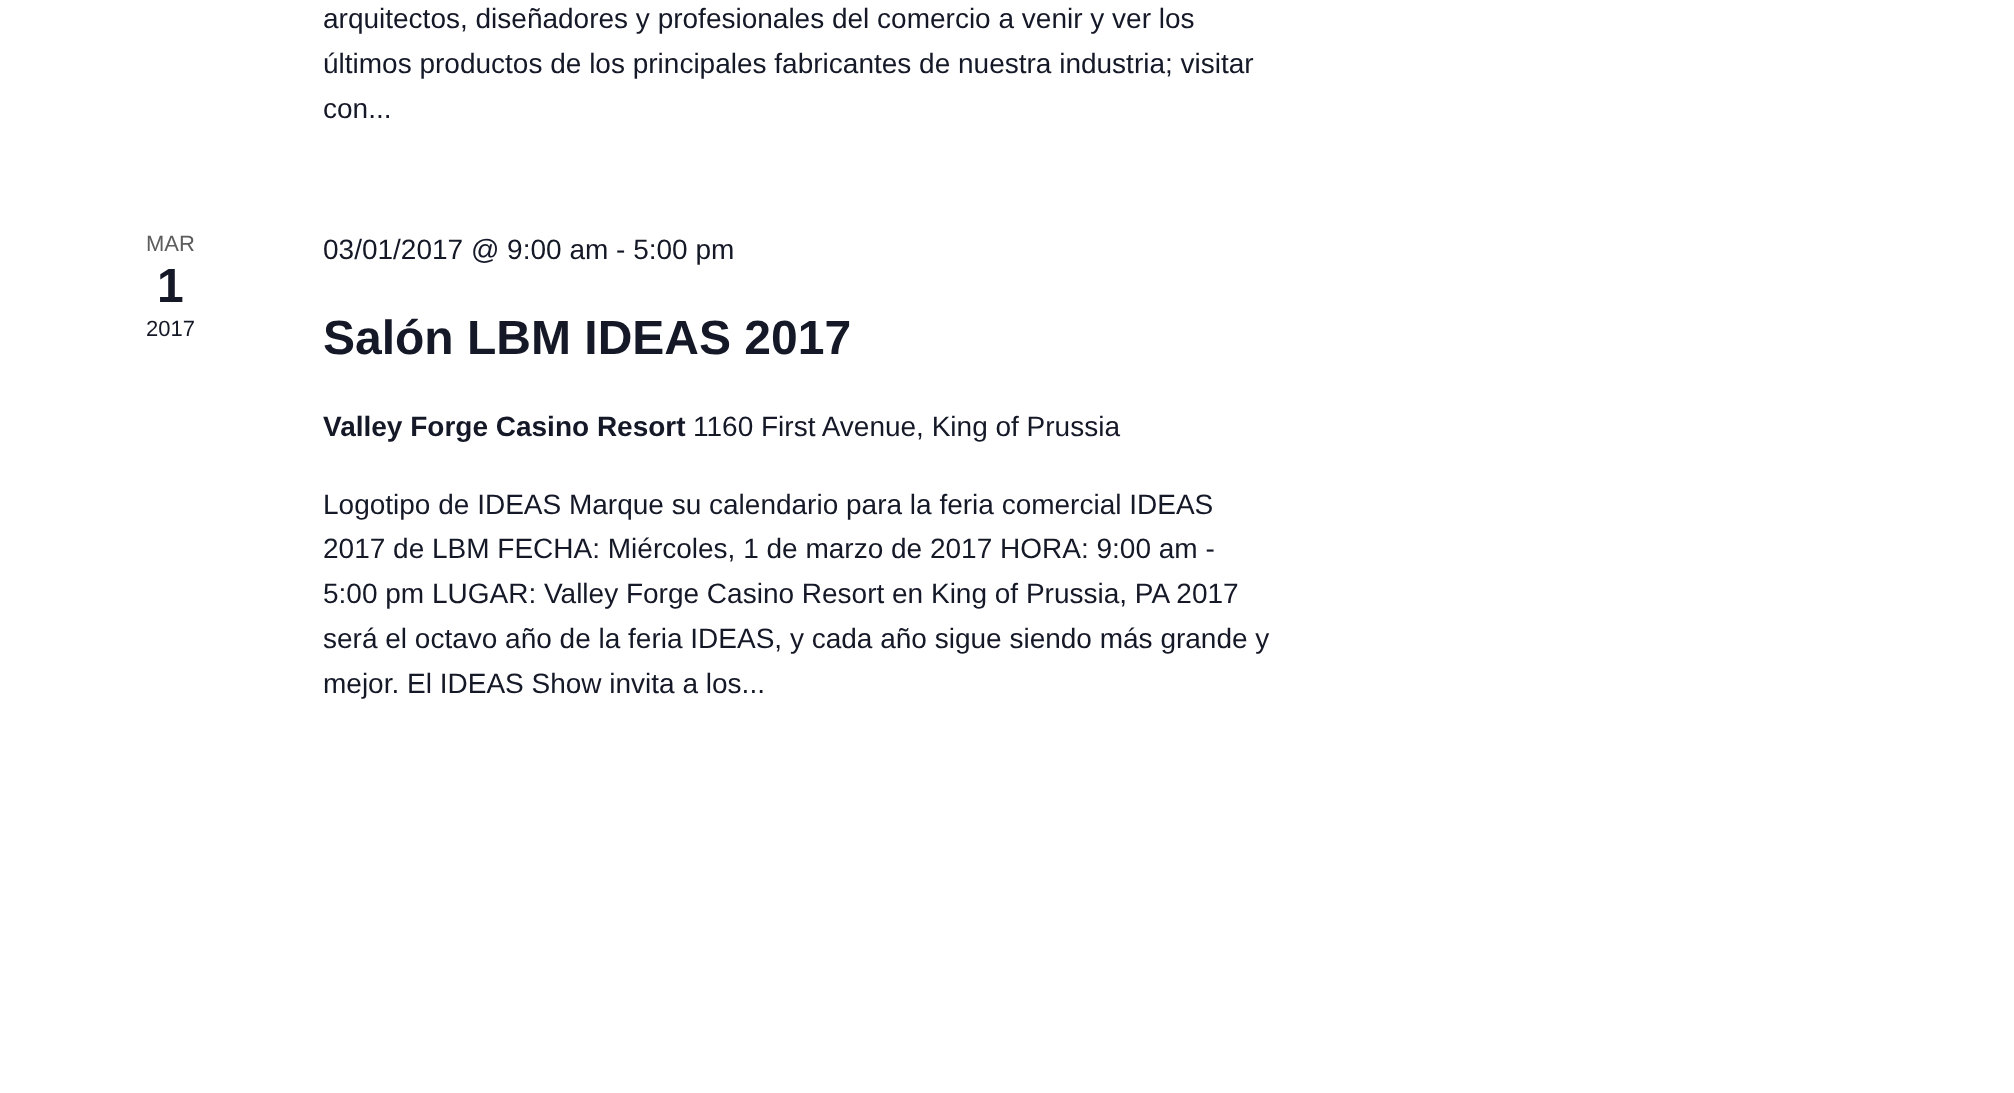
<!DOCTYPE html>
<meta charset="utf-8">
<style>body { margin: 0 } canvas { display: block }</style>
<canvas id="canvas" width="2014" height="1093"></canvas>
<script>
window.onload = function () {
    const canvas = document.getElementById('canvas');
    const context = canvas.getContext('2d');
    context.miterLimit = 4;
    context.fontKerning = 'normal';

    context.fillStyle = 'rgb(255, 255, 255)';
    context.fillRect(0, 0, 2014, 1093);
    context.font = '28px Liberation Sans';
    context.fillStyle = 'rgb(20, 24, 39)';
    context.fillText('arquitectos, diseñadores y profesionales del comercio a venir y ver los', 323, 28);
    context.fillText('últimos productos de los principales fabricantes de nuestra industria; visitar', 323, 73);
    context.fillText('con...', 323, 118);
    context.font = '22px Liberation Sans';
    context.fillStyle = 'rgb(93, 93, 93)';
    context.fillText('MAR', 146, 251);
    context.font = 'bold 48px Liberation Sans';
    context.fillStyle = 'rgb(20, 24, 39)';
    context.fillText('1', 157, 302);
    context.font = '22px Liberation Sans';
    context.fillText('2017', 146, 336);
    context.font = '28px Liberation Sans';
    context.fillText('03/01/2017 @ 9:00 am - 5:00 pm', 323, 259);
    context.font = 'bold 48px Liberation Sans';
    context.fillText('Salón LBM IDEAS 2017', 323, 354);
    context.font = 'bold 28px Liberation Sans';
    context.fillText('Valley Forge Casino Resort', 323, 436);
    context.font = '28px Liberation Sans';
    context.fillText('1160 First Avenue, King of Prussia', 693, 436);
    context.fillText('Logotipo de IDEAS Marque su calendario para la feria comercial IDEAS', 323, 514);
    context.fillText('2017 de LBM FECHA: Miércoles, 1 de marzo de 2017 HORA: 9:00 am -', 323, 558);
    context.fillText('5:00 pm LUGAR: Valley Forge Casino Resort en King of Prussia, PA 2017', 323, 603);
    context.fillText('será el octavo año de la feria IDEAS, y cada año sigue siendo más grande y', 323, 648);
    context.fillText('mejor. El IDEAS Show invita a los...', 323, 693);
};
</script>
